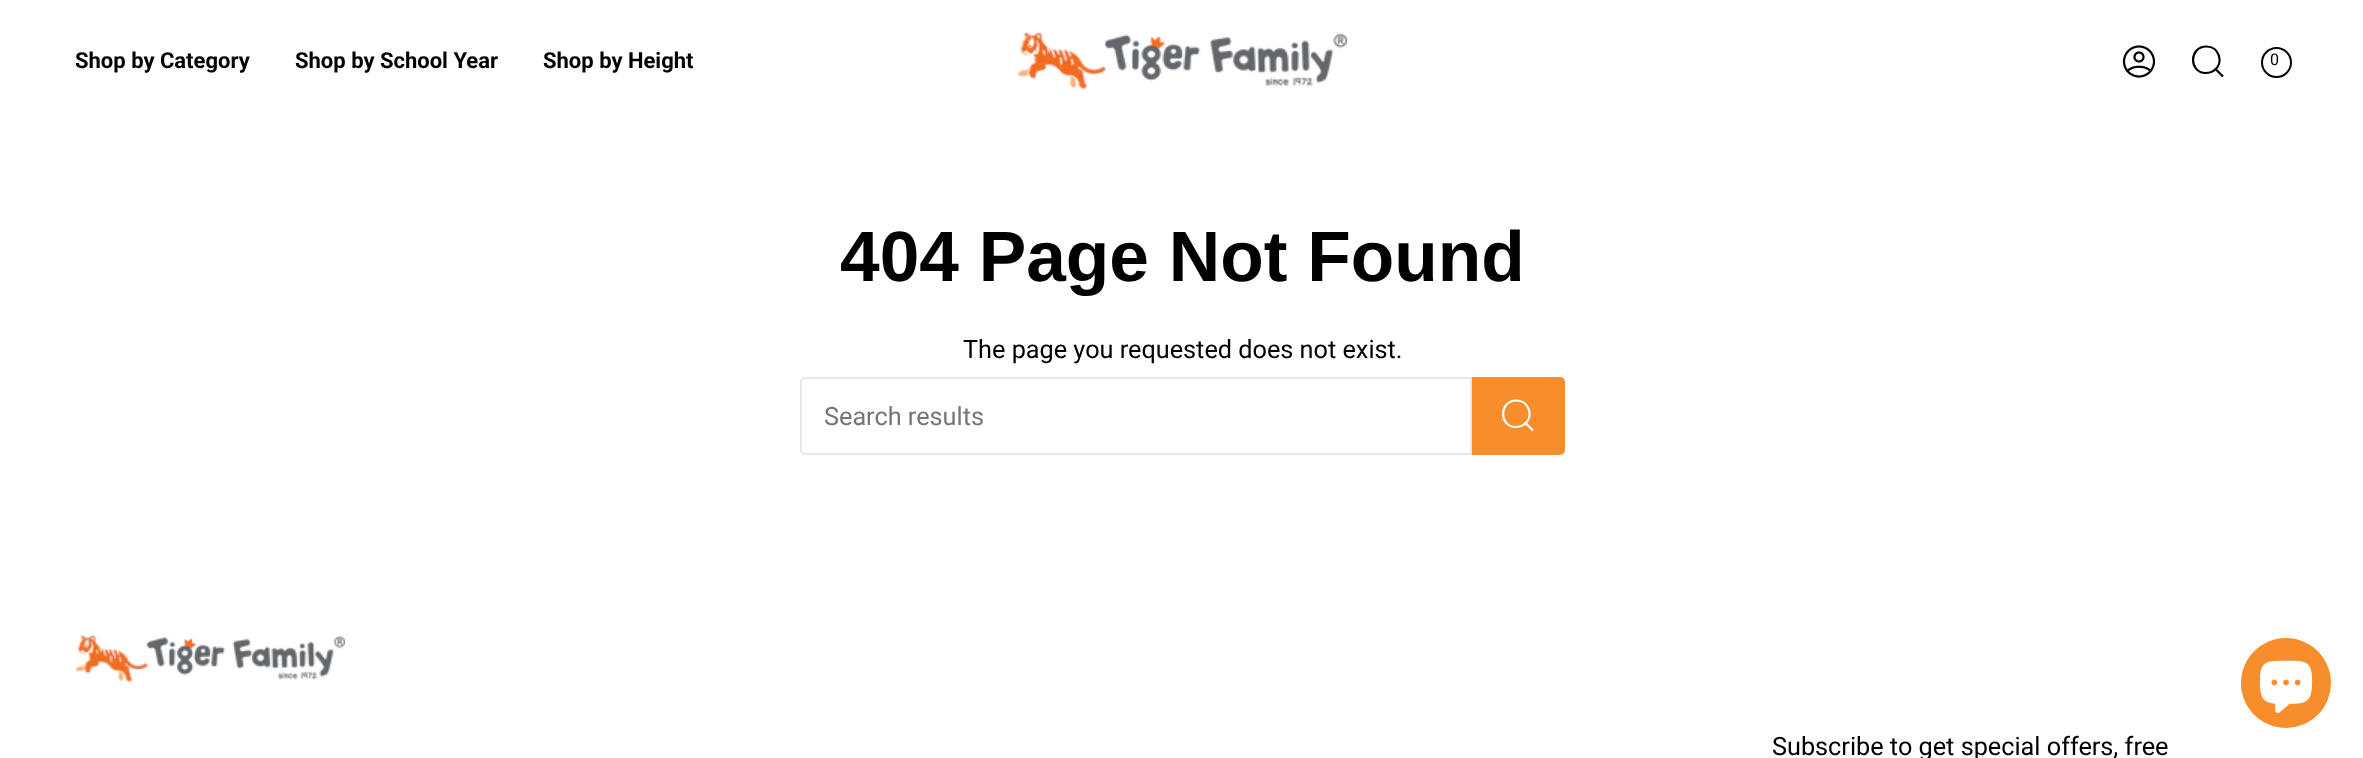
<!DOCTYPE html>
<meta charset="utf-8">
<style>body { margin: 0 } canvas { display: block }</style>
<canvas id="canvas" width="2363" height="758"></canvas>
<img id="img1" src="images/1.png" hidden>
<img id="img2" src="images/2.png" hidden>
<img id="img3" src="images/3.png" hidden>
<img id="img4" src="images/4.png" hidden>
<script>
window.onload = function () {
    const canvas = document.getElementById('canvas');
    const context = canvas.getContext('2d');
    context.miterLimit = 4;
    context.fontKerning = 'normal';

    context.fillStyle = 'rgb(255, 255, 255)';
    context.fillRect(0, 0, 2363, 758);
    context.drawImage(document.getElementById('img1'), 1016, 31, 331, 60);
    context.drawImage(document.getElementById('img2'), 2122, 45, 34, 33);
    context.beginPath();
    context.moveTo(2206.5, 46.5);
    context.bezierCurveTo(2219, 46.5, 2224.5, 63, 2214, 70.5);
    context.bezierCurveTo(2211.5, 72.5, 2208.5, 73, 2205.5, 73);
    context.bezierCurveTo(2188.5, 72.5, 2189, 46.5, 2206.5, 46.5);
    context.closePath();
    context.moveTo(2215.5, 69);
    context.lineTo(2223, 76.5);
    context.strokeStyle = 'rgb(0, 0, 0)';
    context.lineWidth = 2.2;
    context.stroke();
    context.beginPath();
    context.arc(2276.5, 62.5, 14.5, 0, 2 * Math.PI);
    context.lineWidth = 2;
    context.stroke();
    context.beginPath();
    context.roundRect(801, 378, 670, 76, [4, 0, 0, 4]);
    context.strokeStyle = 'rgb(228, 233, 225)';
    context.stroke();
    context.fillStyle = 'rgb(248, 141, 43)';
    context.beginPath();
    context.roundRect(1473, 378, 91, 76, [0, 4, 4, 0]);
    context.fill();
    context.strokeStyle = 'rgb(248, 141, 43)';
    context.stroke();
    context.beginPath();
    context.moveTo(1516.5, 400.5);
    context.bezierCurveTo(1529, 400.5, 1534.5, 417, 1524, 424.5);
    context.bezierCurveTo(1521.5, 426.5, 1518.5, 427, 1515.5, 427);
    context.bezierCurveTo(1498.5, 426.5, 1499, 400.5, 1516.5, 400.5);
    context.closePath();
    context.moveTo(1525.5, 423);
    context.lineTo(1533, 430.5);
    context.strokeStyle = 'rgb(255, 255, 255)';
    context.lineWidth = 2.2;
    context.stroke();
    context.beginPath();
    context.arc(2286, 683, 45, 0, 2 * Math.PI);
    context.fill();
    context.drawImage(document.getElementById('img3'), 2259, 660, 54, 53);
    context.drawImage(document.getElementById('img4'), 75, 634, 270, 49);
    context.font = 'bold 22px Roboto';
    context.fillStyle = 'rgb(0, 0, 0)';
    context.fillText('Shop by Category', 75, 68);
    context.fillText('Shop by School Year', 295, 68);
    context.fillText('Shop by Height', 543, 68);
    context.font = '16px Roboto';
    context.fillText('0', 2270, 65);
    context.font = 'bold 71.25px Liberation Sans';
    context.fillText('404 Page Not Found', 840, 281);
    context.font = '25.25px Roboto';
    context.fillText('The page you requested does not exist.', 963, 358);
    context.fillStyle = 'rgb(117, 117, 117)';
    context.fillText('Search results', 824, 425);
    context.fillStyle = 'rgb(0, 0, 0)';
    context.fillText('Subscribe to get special offers, free', 1772, 755);
};
</script>
